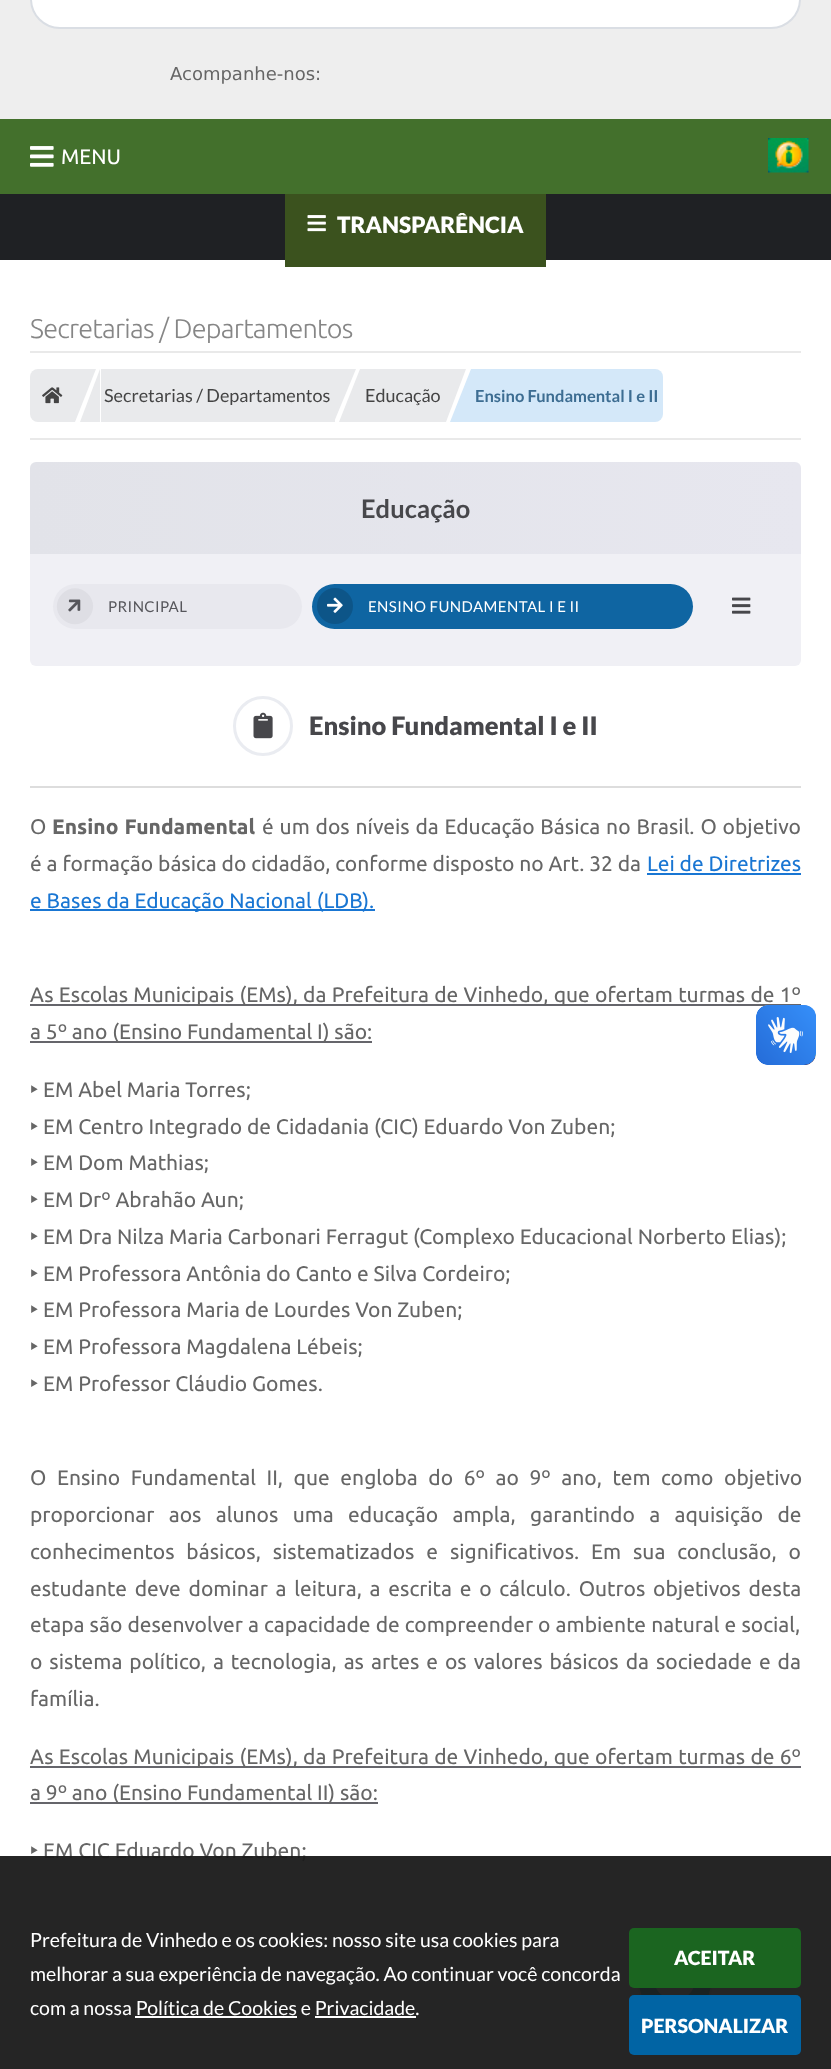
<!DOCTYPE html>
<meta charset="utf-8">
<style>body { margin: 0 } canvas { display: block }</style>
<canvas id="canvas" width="831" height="2069"></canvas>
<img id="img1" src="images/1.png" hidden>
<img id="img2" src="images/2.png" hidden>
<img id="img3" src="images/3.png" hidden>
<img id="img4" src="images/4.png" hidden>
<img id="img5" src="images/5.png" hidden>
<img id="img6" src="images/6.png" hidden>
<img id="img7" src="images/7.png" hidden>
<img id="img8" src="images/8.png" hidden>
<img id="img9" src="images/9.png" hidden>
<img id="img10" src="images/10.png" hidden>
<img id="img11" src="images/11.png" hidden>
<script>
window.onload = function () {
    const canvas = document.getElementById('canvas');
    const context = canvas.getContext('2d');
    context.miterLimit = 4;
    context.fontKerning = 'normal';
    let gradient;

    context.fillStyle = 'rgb(255, 255, 255)';
    context.fillRect(0, 0, 831, 2069);
    context.fillStyle = 'rgb(238, 238, 238)';
    context.fillRect(0, 0, 831, 119);
    context.fillStyle = 'rgb(255, 255, 255)';
    context.beginPath();
    context.roundRect(31, -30, 769, 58, 29);
    context.fill();
    context.strokeStyle = 'rgb(218, 222, 228)';
    context.lineWidth = 2;
    context.stroke();
    context.fillStyle = 'rgb(67, 112, 44)';
    context.fillRect(0, 119, 831, 75);
    context.drawImage(document.getElementById('img1'), 30, 146, 24, 21);
    context.drawImage(document.getElementById('img2'), 768, 138, 41, 35);
    context.fillStyle = 'rgb(31, 33, 36)';
    context.fillRect(0, 194, 831, 66);
    context.fillStyle = 'rgb(59, 82, 30)';
    context.fillRect(285, 194, 261, 73);
    context.drawImage(document.getElementById('img3'), 307, 215, 19, 17);
    context.fillStyle = 'rgb(233, 233, 233)';
    context.fillRect(30, 351, 771, 2);
    context.fillRect(30, 438, 771, 2);
    context.fillStyle = 'rgb(233, 234, 236)';
    context.beginPath();
    context.roundRect(30, 369, 45, 53, [8, 0, 0, 8]);
    context.fill();
    context.drawImage(document.getElementById('img4'), 42, 387, 21, 17);
    context.beginPath();
    context.moveTo(75, 369);
    context.lineTo(96, 369);
    context.lineTo(75, 422);
    context.closePath();
    context.fill();
    context.fillRect(101, 369, 234, 53);
    context.beginPath();
    context.moveTo(100, 422);
    context.lineTo(80, 422);
    context.lineTo(100, 369);
    context.closePath();
    context.fill();
    context.beginPath();
    context.moveTo(334, 369);
    context.lineTo(356, 369);
    context.lineTo(334, 422);
    context.closePath();
    context.fill();
    context.fillRect(360, 369, 86, 53);
    context.beginPath();
    context.moveTo(360, 422);
    context.lineTo(339, 422);
    context.lineTo(360, 369);
    context.closePath();
    context.fill();
    context.beginPath();
    context.moveTo(446, 369);
    context.lineTo(466, 369);
    context.lineTo(446, 422);
    context.closePath();
    context.fill();
    context.fillStyle = 'rgb(212, 232, 249)';
    context.beginPath();
    context.roundRect(471, 369, 192, 53, [0, 8, 8, 0]);
    context.fill();
    context.beginPath();
    context.moveTo(471, 422);
    context.lineTo(450, 422);
    context.lineTo(471, 369);
    context.closePath();
    context.fill();
    gradient = context.createLinearGradient(30, 508, 801, 508);
    gradient.addColorStop(0, 'rgb(226, 227, 233)');
    gradient.addColorStop(1, 'rgb(231, 231, 239)');
    context.fillStyle = gradient;
    context.beginPath();
    context.roundRect(30, 462, 771, 92, [6, 6, 0, 0]);
    context.fill();
    context.fillStyle = 'rgb(240, 240, 245)';
    context.beginPath();
    context.roundRect(30, 554, 771, 112, [0, 0, 6, 6]);
    context.fill();
    context.fillStyle = 'rgb(232, 232, 238)';
    context.beginPath();
    context.roundRect(53, 584, 249, 45, 22.5);
    context.fill();
    context.fillStyle = 'rgb(222, 222, 228)';
    context.beginPath();
    context.moveTo(62.5, 593.5);
    context.bezierCurveTo(69.5, 586.5, 80.5, 586.5, 87.5, 593.5);
    context.bezierCurveTo(95, 600.5, 95, 612, 87.5, 619);
    context.bezierCurveTo(80.5, 626, 69.5, 626, 62.5, 619);
    context.bezierCurveTo(55, 612, 55, 600.5, 62.5, 593.5);
    context.closePath();
    context.fill();
    context.drawImage(document.getElementById('img5'), 68, 599, 13, 13);
    context.fillStyle = 'rgb(15, 101, 162)';
    context.beginPath();
    context.roundRect(312, 584, 381, 45, 22.5);
    context.fill();
    context.fillStyle = 'rgb(13, 85, 136)';
    context.beginPath();
    context.arc(335, 606, 18, 0, 2 * Math.PI);
    context.fill();
    context.drawImage(document.getElementById('img6'), 327, 597, 16, 16);
    context.drawImage(document.getElementById('img7'), 732, 597, 19, 17);
    context.fillStyle = 'rgb(221, 221, 221)';
    context.fillRect(30, 786, 771, 2);
    context.beginPath();
    context.arc(263, 726, 28.5, 0, 2 * Math.PI);
    context.strokeStyle = 'rgb(234, 236, 241)';
    context.lineWidth = 3;
    context.stroke();
    context.drawImage(document.getElementById('img8'), 253, 712, 20, 27);
    context.fillStyle = 'rgb(25, 118, 211)';
    context.fillRect(647, 873, 154, 2);
    context.fillRect(30, 909, 345, 2);
    context.fillStyle = 'rgb(101, 101, 107)';
    context.fillRect(30, 1004, 771, 2);
    context.fillRect(30, 1041, 342, 2);
    context.fillRect(30, 1766, 771, 2);
    context.fillRect(30, 1802, 348, 2);
    context.fillStyle = 'rgba(0, 0, 0, 0.1)';
    context.filter = 'blur(24px)';
    context.beginPath();
    context.roundRect(639, 1949, 72, 72, 36);
    context.fill();
    context.filter = 'none';
    context.filter = 'blur(4.5px)';
    context.beginPath();
    context.roundRect(639, 1947, 72, 72, 36);
    context.fill();
    context.filter = 'none';
    context.fillStyle = 'rgb(44, 195, 213)';
    context.beginPath();
    context.arc(675, 1982, 36, 0, 2 * Math.PI);
    context.fill();
    context.drawImage(document.getElementById('img9'), 656, 1988, 38, 7);
    context.font = '18px DejaVu Sans';
    context.fillStyle = 'rgb(102, 102, 102)';
    context.fillText('Acompanhe-nos:', 170, 80);
    context.font = '21px Ubuntu';
    context.fillStyle = 'rgb(255, 255, 255)';
    context.fillText('MENU', 61, 164);
    context.font = '900 22.5px Lato';
    context.fillText('TRANSPARÊNCIA', 337, 233);
    context.letterSpacing = '-0.75px';
    context.font = '300 27px Ubuntu';
    context.fillStyle = 'rgb(134, 134, 134)';
    context.fillText('Secretarias / Departamentos', 30, 338);
    context.letterSpacing = '0px';
    context.font = '18px Lato';
    context.fillStyle = 'rgb(68, 68, 68)';
    context.fillText('Secretarias / Departamentos', 104, 402);
    context.fillText('Educação', 365, 402);
    context.font = 'bold 16.5px Lato';
    context.fillStyle = 'rgb(61, 109, 146)';
    context.fillText('Ensino Fundamental I e II', 475, 402);
    context.font = 'bold 25.5px Lato';
    context.fillStyle = 'rgb(71, 71, 75)';
    context.fillText('Educação', 361, 518);
    context.letterSpacing = '0.4px';
    context.font = '15px Lato';
    context.fillStyle = 'rgb(86, 86, 91)';
    context.fillText('PRINCIPAL', 108, 612);
    context.fillStyle = 'rgb(255, 255, 255)';
    context.fillText('ENSINO FUNDAMENTAL I E II', 368, 612);
    context.letterSpacing = '0px';
    context.font = '900 25.5px Lato';
    context.fillStyle = 'rgb(71, 71, 75)';
    context.fillText('Ensino Fundamental I e II', 309, 735);
    context.font = '21px Ubuntu';
    context.fillStyle = 'rgb(102, 102, 102)';
    context.fillText('O', 30, 834);
    context.wordSpacing = '1px';
    context.font = 'bold 21px Ubuntu';
    context.fillText('Ensino Fundamental', 52, 834);
    context.font = '21px Ubuntu';
    context.fillText('é um dos níveis da Educação Básica no Brasil. O objetivo', 262, 834);
    context.wordSpacing = '0px';
    context.fillText('é a formação básica do cidadão, conforme disposto no Art. 32 da', 30, 871);
    context.fillStyle = 'rgb(25, 118, 211)';
    context.fillText('Lei de Diretrizes', 647, 871);
    context.fillText('e Bases da Educação Nacional (LDB).', 30, 908);
    context.wordSpacing = '0.4px';
    context.fillStyle = 'rgb(102, 102, 102)';
    context.fillText('As Escolas Municipais (EMs), da Prefeitura de Vinhedo, que ofertam turmas de 1º', 30, 1002);
    context.wordSpacing = '0px';
    context.fillText('a 5º ano (Ensino Fundamental I) são:', 30, 1039);
    context.font = 'bold 21px Noto Sans';
    context.fillText('‣', 30, 1097);
    context.font = '21px Ubuntu';
    context.fillText('EM Abel Maria Torres;', 43, 1097);
    context.font = 'bold 21px Noto Sans';
    context.fillText('‣', 30, 1134);
    context.font = '21px Ubuntu';
    context.fillText('EM Centro Integrado de Cidadania (CIC) Eduardo Von Zuben;', 43, 1134);
    context.font = 'bold 21px Noto Sans';
    context.fillText('‣', 30, 1170);
    context.font = '21px Ubuntu';
    context.fillText('EM Dom Mathias;', 43, 1170);
    context.font = 'bold 21px Noto Sans';
    context.fillText('‣', 30, 1207);
    context.font = '21px Ubuntu';
    context.fillText('EM Drº Abrahão Aun;', 43, 1207);
    context.font = 'bold 21px Noto Sans';
    context.fillText('‣', 30, 1244);
    context.font = '21px Ubuntu';
    context.fillText('EM Dra Nilza Maria Carbonari Ferragut (Complexo Educacional Norberto Elias);', 43, 1244);
    context.font = 'bold 21px Noto Sans';
    context.fillText('‣', 30, 1281);
    context.font = '21px Ubuntu';
    context.fillText('EM Professora Antônia do Canto e Silva Cordeiro;', 43, 1281);
    context.font = 'bold 21px Noto Sans';
    context.fillText('‣', 30, 1317);
    context.font = '21px Ubuntu';
    context.fillText('EM Professora Maria de Lourdes Von Zuben;', 43, 1317);
    context.font = 'bold 21px Noto Sans';
    context.fillText('‣', 30, 1354);
    context.font = '21px Ubuntu';
    context.fillText('EM Professora Magdalena Lébeis;', 43, 1354);
    context.font = 'bold 21px Noto Sans';
    context.fillText('‣', 30, 1391);
    context.font = '21px Ubuntu';
    context.fillText('EM Professor Cláudio Gomes.', 43, 1391);
    context.wordSpacing = '5.75px';
    context.fillText('O Ensino Fundamental II, que engloba do 6º ao 9º ano, tem como objetivo', 30, 1485);
    context.wordSpacing = '9.5px';
    context.fillText('proporcionar aos alunos uma educação ampla, garantindo a aquisição de', 30, 1522);
    context.wordSpacing = '7px';
    context.fillText('conhecimentos básicos, sistematizados e significativos. Em sua conclusão, o', 30, 1559);
    context.wordSpacing = '2.9px';
    context.fillText('estudante deve dominar a leitura, a escrita e o cálculo. Outros objetivos desta', 30, 1596);
    context.wordSpacing = '0.25px';
    context.fillText('etapa são desenvolver a capacidade de compreender o ambiente natural e social,', 30, 1632);
    context.wordSpacing = '2.1px';
    context.fillText('o sistema político, a tecnologia, as artes e os valores básicos da sociedade e da', 30, 1669);
    context.wordSpacing = '0px';
    context.fillText('família.', 30, 1706);
    context.wordSpacing = '0.4px';
    context.fillText('As Escolas Municipais (EMs), da Prefeitura de Vinhedo, que ofertam turmas de 6º', 30, 1764);
    context.wordSpacing = '0px';
    context.fillText('a 9º ano (Ensino Fundamental II) são:', 30, 1800);
    context.font = 'bold 21px Noto Sans';
    context.fillText('‣', 30, 1858);
    context.font = '21px Ubuntu';
    context.fillText('EM CIC Eduardo Von Zuben;', 43, 1858);
    context.drawImage(document.getElementById('img10'), 756, 1005, 60, 60);
    context.drawImage(document.getElementById('img11'), 756, 1005, 60, 60);
    context.fillStyle = 'rgba(25, 25, 25, 0.95)';
    context.fillRect(0, 1856, 831, 213);
    context.font = '19.5px Lato';
    context.fillStyle = 'rgb(255, 255, 255)';
    context.fillText('Prefeitura de Vinhedo e os cookies: nosso site usa cookies para', 30, 1947);
    context.fillText('melhorar a sua experiência de navegação. Ao continuar você concorda', 30, 1981);
    context.fillText('com a nossa Política de Cookies e Privacidade.', 30, 2015);
    context.fillRect(135, 2016, 162, 2);
    context.fillRect(315, 2016, 101, 2);
    context.fillStyle = 'rgb(27, 101, 32)';
    context.beginPath();
    context.roundRect(629, 1928, 172, 60, 5);
    context.fill();
    context.font = '900 19.5px Lato';
    context.fillStyle = 'rgb(255, 255, 255)';
    context.fillText('ACEITAR', 674, 1965);
    context.fillStyle = 'rgb(1, 100, 164)';
    context.beginPath();
    context.roundRect(629, 1995, 172, 60, 5);
    context.fill();
    context.fillStyle = 'rgb(255, 255, 255)';
    context.fillText('PERSONALIZAR', 641, 2033);
};
</script>
